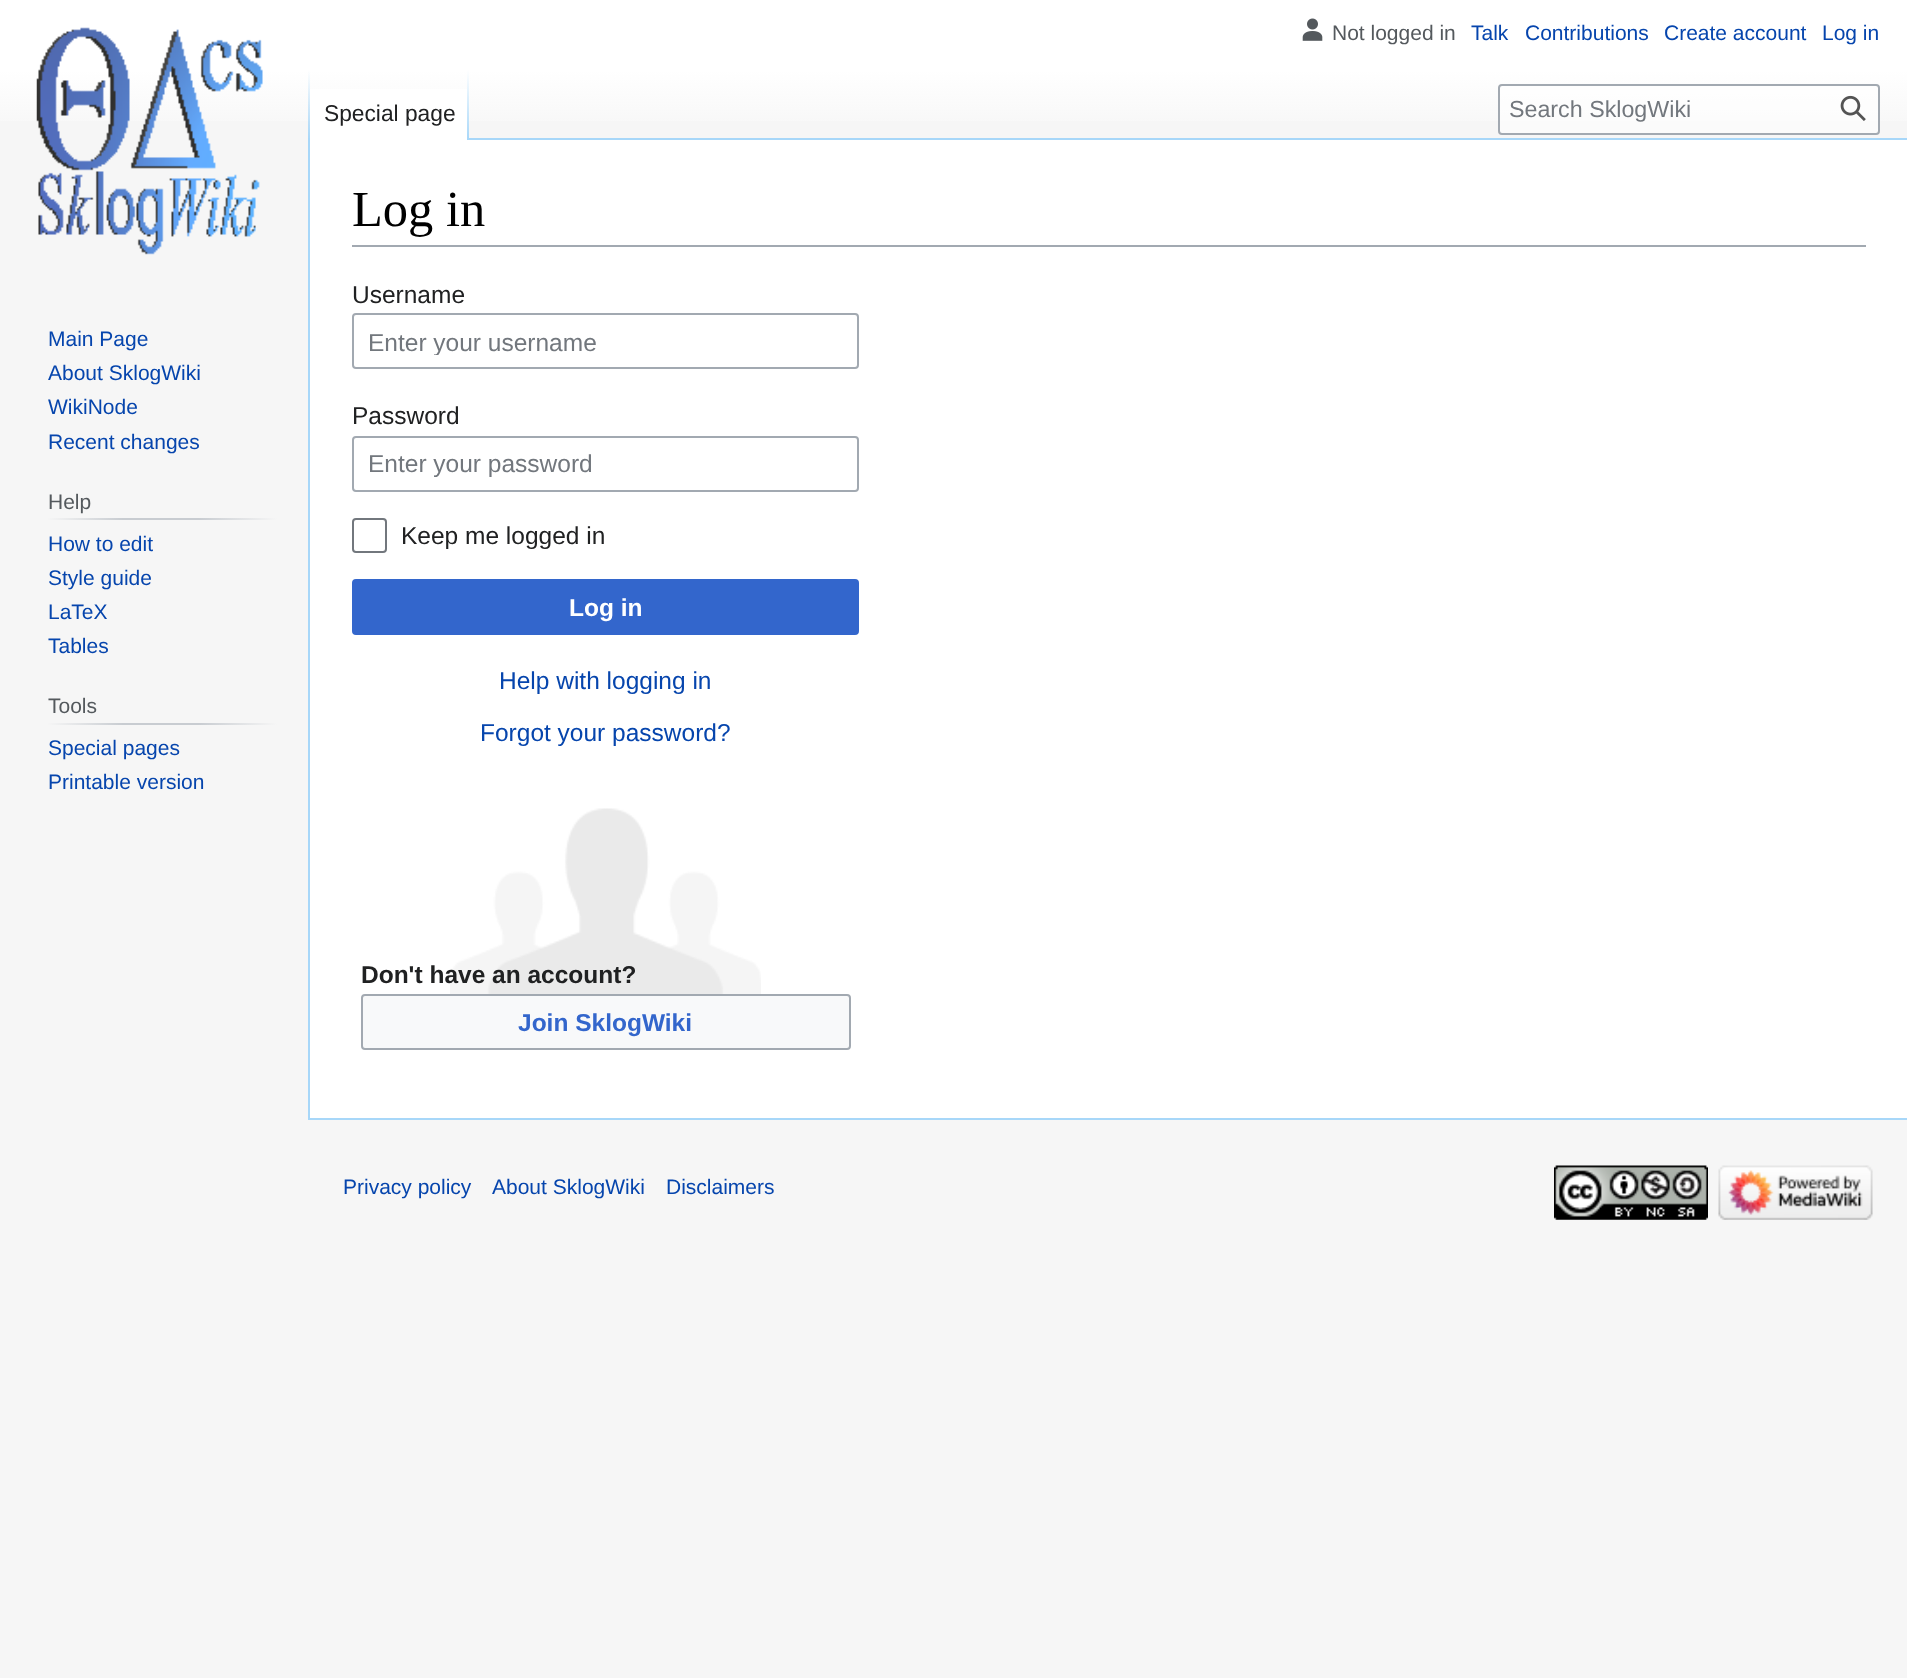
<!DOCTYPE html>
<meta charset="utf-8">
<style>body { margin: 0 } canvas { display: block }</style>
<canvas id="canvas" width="1907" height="1678"></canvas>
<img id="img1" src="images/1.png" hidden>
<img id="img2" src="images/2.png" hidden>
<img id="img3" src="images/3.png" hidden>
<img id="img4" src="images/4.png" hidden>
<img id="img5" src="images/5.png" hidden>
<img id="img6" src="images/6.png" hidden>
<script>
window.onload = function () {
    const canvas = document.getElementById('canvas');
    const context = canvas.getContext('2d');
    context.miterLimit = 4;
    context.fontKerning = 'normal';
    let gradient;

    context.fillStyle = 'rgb(246, 246, 246)';
    context.fillRect(0, 0, 1907, 1678);
    gradient = context.createLinearGradient(954, 0, 954, 140);
    gradient.addColorStop(0.5, 'rgb(255, 255, 255)');
    gradient.addColorStop(1, 'rgb(246, 246, 246)');
    context.fillStyle = gradient;
    context.fillRect(0, 0, 1907, 121);
    context.drawImage(document.getElementById('img1'), 1302, 18, 21, 23);
    context.fillStyle = 'rgb(167, 215, 249)';
    context.fillRect(308, 1118, 1599, 2);
    context.fillRect(308, 138, 2, 982);
    gradient = context.createLinearGradient(309, 70, 309, 140);
    gradient.addColorStop(0, 'rgba(167, 215, 249, 0)');
    gradient.addColorStop(1, 'rgb(167, 215, 249)');
    context.fillStyle = gradient;
    context.fillRect(308, 70, 2, 70);
    context.fillStyle = 'rgb(255, 255, 255)';
    context.fillRect(310, 89, 157, 51);
    gradient = context.createLinearGradient(468, 70, 468, 140);
    gradient.addColorStop(0, 'rgb(255, 255, 255)');
    gradient.addColorStop(1, 'rgb(167, 215, 249)');
    context.fillStyle = gradient;
    context.fillRect(467, 70, 2, 70);
    context.fillStyle = 'rgba(255, 255, 255, 0.5)';
    context.beginPath();
    context.roundRect(1499, 85, 380, 49, 3);
    context.fill();
    context.strokeStyle = 'rgb(162, 169, 177)';
    context.lineWidth = 2;
    context.stroke();
    context.drawImage(document.getElementById('img2'), 1840, 95, 26, 26);
    context.drawImage(document.getElementById('img3'), 36, 27, 227, 228);
    gradient = context.createLinearGradient(47, 519, 277, 519);
    gradient.addColorStop(0, 'rgb(246, 246, 246)');
    gradient.addColorStop(0.33, 'rgb(200, 204, 209)');
    gradient.addColorStop(0.66, 'rgb(200, 204, 209)');
    gradient.addColorStop(1, 'rgb(246, 246, 246)');
    context.fillStyle = gradient;
    context.fillRect(47, 518, 230, 2);
    gradient = context.createLinearGradient(47, 724, 277, 724);
    gradient.addColorStop(0, 'rgb(246, 246, 246)');
    gradient.addColorStop(0.33, 'rgb(200, 204, 209)');
    gradient.addColorStop(0.66, 'rgb(200, 204, 209)');
    gradient.addColorStop(1, 'rgb(246, 246, 246)');
    context.fillStyle = gradient;
    context.fillRect(47, 723, 230, 2);
    context.fillStyle = 'rgb(255, 255, 255)';
    context.fillRect(310, 140, 1597, 978);
    context.fillStyle = 'rgb(167, 215, 249)';
    context.fillRect(469, 138, 1438, 2);
    context.fillStyle = 'rgb(162, 169, 177)';
    context.fillRect(352, 245, 1514, 2);
    context.beginPath();
    context.roundRect(353, 314, 505, 54, 3);
    context.stroke();
    context.beginPath();
    context.roundRect(353, 437, 505, 54, 3);
    context.stroke();
    context.beginPath();
    context.roundRect(353, 519, 33, 33, 3);
    context.strokeStyle = 'rgb(114, 119, 125)';
    context.stroke();
    context.fillStyle = 'rgb(51, 102, 204)';
    context.beginPath();
    context.roundRect(353, 580, 505, 54, 3);
    context.fill();
    context.strokeStyle = 'rgb(51, 102, 204)';
    context.stroke();
    context.drawImage(document.getElementById('img4'), 450, 808, 311, 186);
    context.fillStyle = 'rgb(248, 249, 250)';
    context.beginPath();
    context.roundRect(362, 995, 488, 54, 3);
    context.fill();
    context.strokeStyle = 'rgb(162, 169, 177)';
    context.stroke();
    context.drawImage(document.getElementById('img5'), 1554, 1165, 154, 55);
    context.drawImage(document.getElementById('img6'), 1718, 1165, 155, 55);
    context.font = '21px Liberation Sans';
    context.fillStyle = 'rgb(84, 89, 93)';
    context.fillText('Not logged in', 1332, 40);
    context.fillStyle = 'rgb(6, 69, 173)';
    context.fillText('Talk', 1471, 40);
    context.fillText('Contributions', 1525, 40);
    context.fillText('Create account', 1664, 40);
    context.fillText('Log in', 1822, 40);
    context.font = '22.75px Liberation Sans';
    context.fillStyle = 'rgb(32, 33, 34)';
    context.fillText('Special page', 324, 121);
    context.font = '23.25px Liberation Sans';
    context.fillStyle = 'rgb(114, 119, 125)';
    context.fillText('Search SklogWiki', 1509, 117);
    context.font = '21px Liberation Sans';
    context.fillStyle = 'rgb(6, 69, 173)';
    context.fillText('Main Page', 48, 346);
    context.fillText('About SklogWiki', 48, 380);
    context.fillText('WikiNode', 48, 414);
    context.fillText('Recent changes', 48, 449);
    context.fillStyle = 'rgb(84, 89, 93)';
    context.fillText('Help', 48, 509);
    context.fillStyle = 'rgb(6, 69, 173)';
    context.fillText('How to edit', 48, 551);
    context.fillText('Style guide', 48, 585);
    context.fillText('LaTeX', 48, 619);
    context.fillText('Tables', 48, 653);
    context.fillStyle = 'rgb(84, 89, 93)';
    context.fillText('Tools', 48, 713);
    context.fillStyle = 'rgb(6, 69, 173)';
    context.fillText('Special pages', 48, 755);
    context.fillText('Printable version', 48, 789);
    context.font = '50.5px Liberation Serif';
    context.fillStyle = 'rgb(0, 0, 0)';
    context.fillText('Log in', 352, 226);
    context.font = '24.5px Liberation Sans';
    context.fillStyle = 'rgb(32, 33, 34)';
    context.fillText('Username', 352, 303);
    context.save();
    context.beginPath();
    context.rect(368, 327, 476, 28);
    context.clip();
    context.fillStyle = 'rgb(114, 119, 125)';
    context.fillText('Enter your username', 368, 351);
    context.restore();
    context.fillText('Password', 352, 424);
    context.fillStyle = 'rgb(114, 119, 125)';
    context.fillText('Enter your password', 368, 472);
    context.fillStyle = 'rgb(32, 33, 34)';
    context.fillText('Keep me logged in', 401, 544);
    context.font = 'bold 24.5px Liberation Sans';
    context.fillStyle = 'rgb(255, 255, 255)';
    context.fillText('Log in', 569, 616);
    context.font = '24.5px Liberation Sans';
    context.fillStyle = 'rgb(6, 69, 173)';
    context.fillText('Help with logging in', 499, 689);
    context.fillText('Forgot your password?', 480, 741);
    context.font = 'bold 24.5px Liberation Sans';
    context.fillStyle = 'rgb(32, 33, 34)';
    context.fillText('Don\'t have an account?', 361, 983);
    context.fillStyle = 'rgb(51, 102, 204)';
    context.fillText('Join SklogWiki', 518, 1031);
    context.font = '21px Liberation Sans';
    context.fillStyle = 'rgb(6, 69, 173)';
    context.fillText('Privacy policy', 343, 1194);
    context.fillText('About SklogWiki', 492, 1194);
    context.fillText('Disclaimers', 666, 1194);
};
</script>
